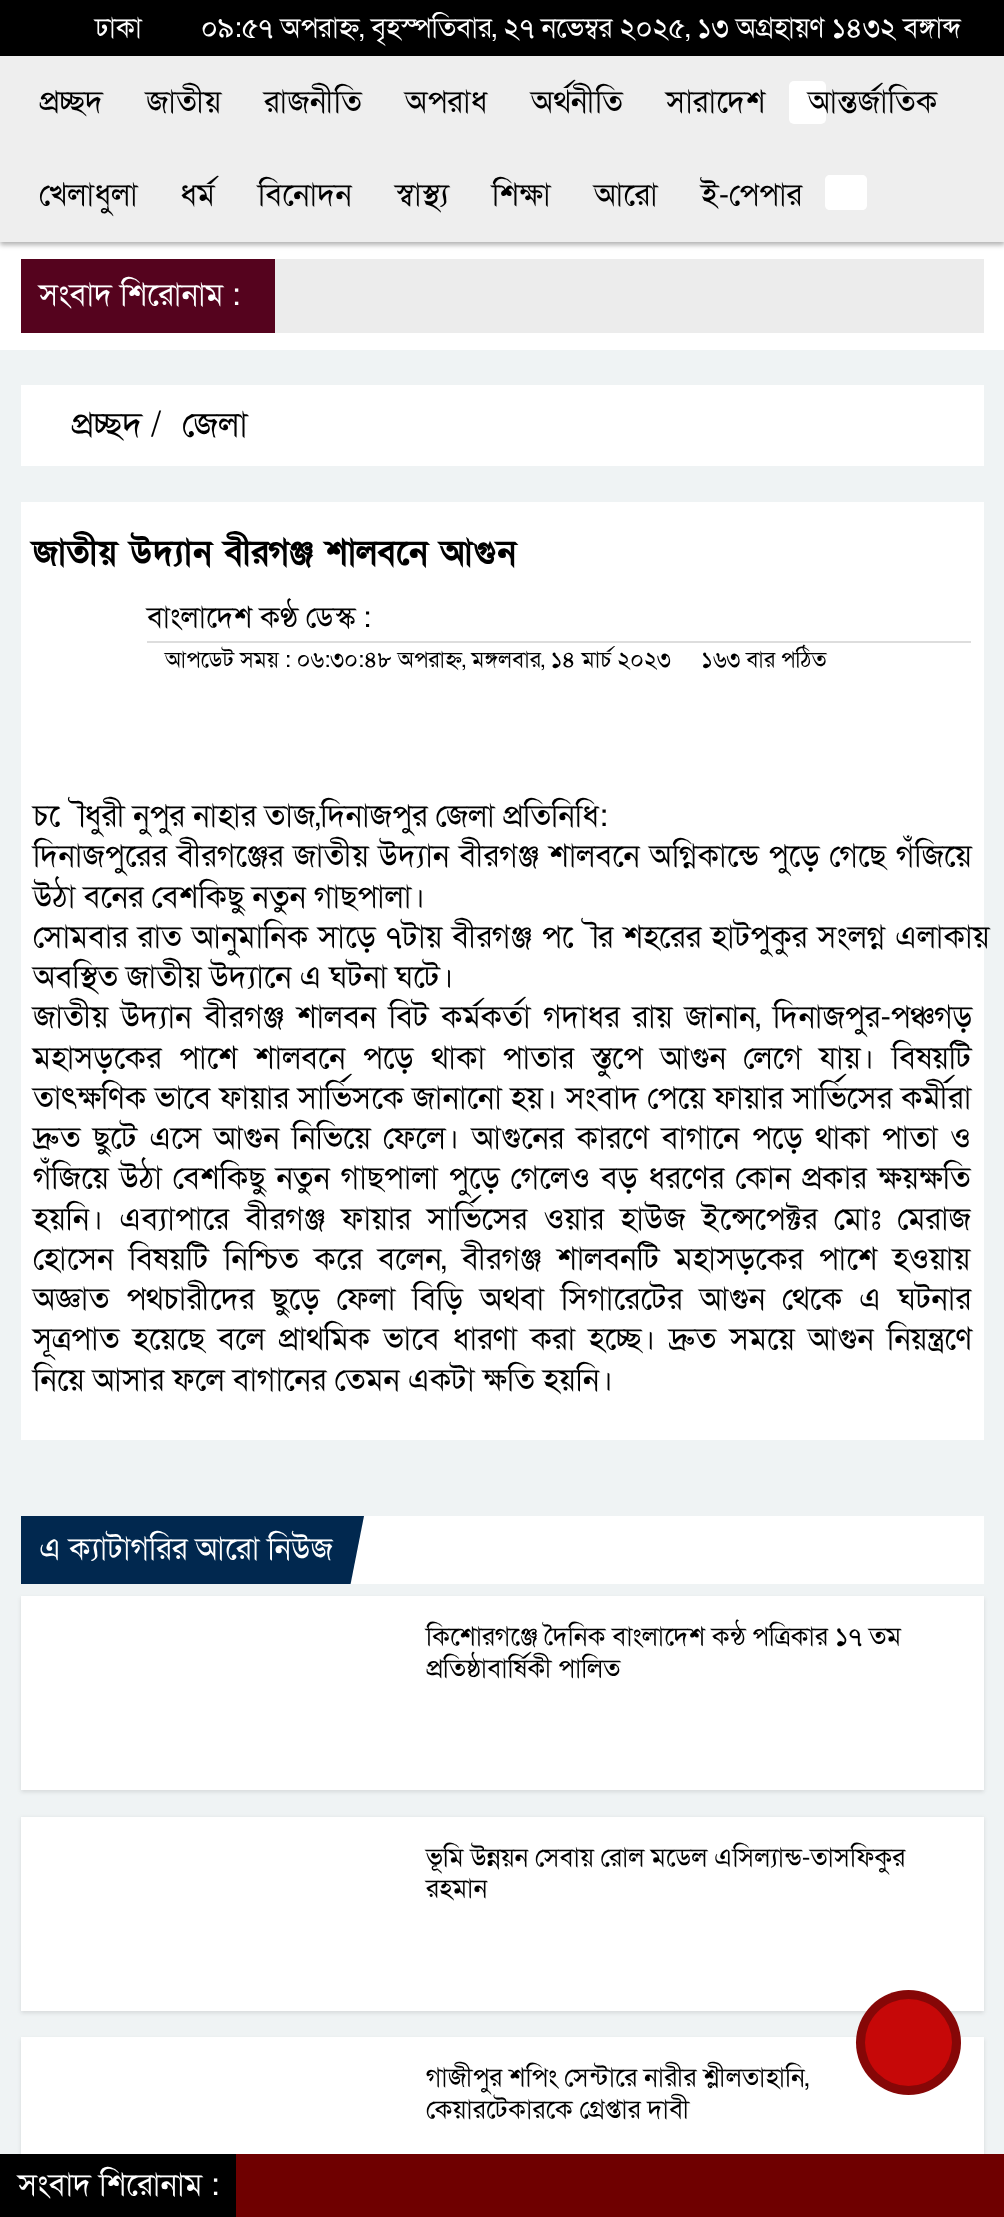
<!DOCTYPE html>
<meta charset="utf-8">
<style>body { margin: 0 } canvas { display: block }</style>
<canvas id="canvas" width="1004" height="2217"></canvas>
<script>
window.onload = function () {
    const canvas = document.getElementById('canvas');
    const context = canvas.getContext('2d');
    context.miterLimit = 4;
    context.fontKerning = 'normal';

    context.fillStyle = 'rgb(255, 255, 255)';
    context.fillRect(0, 0, 1004, 2217);
    context.fillStyle = 'rgb(0, 0, 0)';
    context.fillRect(0, 0, 1004, 56);
    context.fillStyle = 'rgba(0, 0, 0, 0.3)';
    context.filter = 'blur(2.5px)';
    context.beginPath();
    context.rect(0, 60, 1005, 185);
    context.fill();
    context.filter = 'none';
    context.fillStyle = 'rgb(238, 238, 238)';
    context.fillRect(0, 56, 1004, 186);
    context.fillStyle = 'rgb(255, 255, 255)';
    context.beginPath();
    context.roundRect(789, 81, 37, 43, 5);
    context.fill();
    context.beginPath();
    context.moveTo(825, 205);
    context.lineTo(825, 180);
    context.bezierCurveTo(825, 177, 827, 175, 830, 175);
    context.lineTo(862, 175);
    context.bezierCurveTo(865, 175, 867, 177, 867, 180);
    context.lineTo(867, 205);
    context.bezierCurveTo(867, 208, 865, 210, 862, 210);
    context.lineTo(830, 210);
    context.bezierCurveTo(827, 210, 825, 208, 825, 205);
    context.closePath();
    context.fill();
    context.fillStyle = 'rgb(85, 3, 30)';
    context.fillRect(21, 259, 254, 74);
    context.fillStyle = 'rgb(236, 236, 236)';
    context.fillRect(275, 259, 709, 74);
    context.fillStyle = 'rgb(239, 243, 244)';
    context.fillRect(0, 350, 1004, 1804);
    context.fillStyle = 'rgb(255, 255, 255)';
    context.fillRect(21, 385, 963, 81);
    context.fillRect(21, 502, 963, 938);
    context.fillStyle = 'rgb(221, 221, 221)';
    context.fillRect(147, 641, 824, 2);
    context.fillStyle = 'rgb(255, 255, 255)';
    context.fillRect(350, 1516, 634, 68);
    context.fillStyle = 'rgb(1, 40, 79)';
    context.fillRect(21, 1516, 329, 68);
    context.save();
    context.beginPath();
    context.rect(21, 1516, 963, 68);
    context.clip();
    context.beginPath();
    context.moveTo(350, 1516);
    context.lineTo(364, 1516);
    context.lineTo(350, 1587);
    context.closePath();
    context.fill();
    context.restore();
    context.fillStyle = 'rgba(0, 0, 0, 0.1)';
    context.filter = 'blur(2px)';
    context.beginPath();
    context.rect(21, 1598, 963, 194);
    context.fill();
    context.filter = 'none';
    context.fillStyle = 'rgb(255, 255, 255)';
    context.fillRect(21, 1596, 963, 194);
    context.fillStyle = 'rgba(0, 0, 0, 0.1)';
    context.filter = 'blur(2px)';
    context.beginPath();
    context.rect(21, 1818, 963, 195);
    context.fill();
    context.filter = 'none';
    context.fillStyle = 'rgb(255, 255, 255)';
    context.fillRect(21, 1817, 963, 194);
    context.fillStyle = 'rgba(0, 0, 0, 0.1)';
    context.filter = 'blur(2px)';
    context.beginPath();
    context.rect(21, 2039, 963, 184);
    context.fill();
    context.filter = 'none';
    context.fillStyle = 'rgb(255, 255, 255)';
    context.fillRect(21, 2037, 963, 117);
    context.fillStyle = 'rgb(134, 7, 7)';
    context.beginPath();
    context.arc(908.5, 2042.5, 52.5, 0, 2 * Math.PI);
    context.fill();
    context.fillStyle = 'rgb(198, 8, 8)';
    context.beginPath();
    context.arc(908.5, 2042.5, 43.5, 0, 2 * Math.PI);
    context.fill();
    context.fillStyle = 'rgb(111, 0, 0)';
    context.fillRect(236, 2154, 768, 63);
    context.fillStyle = 'rgb(0, 0, 0)';
    context.fillRect(0, 2154, 236, 63);
    context.font = '28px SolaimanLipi';
    context.fillStyle = 'rgb(255, 255, 255)';
    context.fillText('ঢাকা', 95, 37);
    context.fillText('০৯:৫৭ অপরাহ্ন, বৃহস্পতিবার, ২৭ নভেম্বর ২০২৫, ১৩ অগ্রহায়ণ ১৪৩২ বঙ্গাব্দ', 201, 37);
    context.font = '31.5px SolaimanLipi';
    context.fillStyle = 'rgb(0, 0, 0)';
    context.fillText('প্রচ্ছদ', 39, 112);
    context.fillText('জাতীয়', 146, 112);
    context.fillText('রাজনীতি', 264, 112);
    context.fillText('অপরাধ', 405, 112);
    context.fillText('অর্থনীতি', 531, 112);
    context.fillText('সারাদেশ', 666, 112);
    context.fillText('আন্তর্জাতিক', 808, 112);
    context.fillText('খেলাধুলা', 39, 205);
    context.fillText('ধর্ম', 180, 205);
    context.fillText('বিনোদন', 258, 205);
    context.fillText('স্বাস্থ্য', 395, 205);
    context.fillText('শিক্ষা', 492, 205);
    context.fillText('আরো', 594, 205);
    context.fillText('ই-পেপার', 701, 205);
    context.fillStyle = 'rgb(255, 255, 255)';
    context.fillText('সংবাদ শিরোনাম :', 39, 305);
    context.font = '35px SolaimanLipi';
    context.fillStyle = 'rgb(0, 0, 0)';
    context.fillText('প্রচ্ছদ /', 71, 436);
    context.fillText('জেলা', 182, 436);
    context.font = 'bold 35px SolaimanLipi';
    context.fillText('জাতীয় উদ্যান বীরগঞ্জ শালবনে আগুন', 33, 564);
    context.font = '29.75px SolaimanLipi';
    context.fillText('বাংলাদেশ কণ্ঠ ডেস্ক :', 147, 627);
    context.font = '22.75px SolaimanLipi';
    context.fillText('আপডেট সময় : ০৬:৩০:৪৮ অপরাহ্ন, মঙ্গলবার, ১৪ মার্চ ২০২৩', 165, 667);
    context.fillText('১৬৩ বার পঠিত', 701, 667);
    context.font = '31.5px SolaimanLipi';
    context.fillText('চৌধুরী নুপুর নাহার তাজ,দিনাজপুর জেলা প্রতিনিধি:', 33, 826);
    context.wordSpacing = '1.75px';
    context.fillText('দিনাজপুরের বীরগঞ্জের জাতীয় উদ্যান বীরগঞ্জ শালবনে অগ্নিকান্ডে পুড়ে গেছে গঁজিয়ে', 33, 866);
    context.wordSpacing = '0px';
    context.fillText('উঠা বনের বেশকিছু নতুন গাছপালা।', 33, 907);
    context.wordSpacing = '1.75px';
    context.fillText('সোমবার রাত আনুমানিক সাড়ে ৭টায় বীরগঞ্জ পৌর শহরের হাটপুকুর সংলগ্ন এলাকায়', 33, 947);
    context.wordSpacing = '0px';
    context.fillText('অবস্থিত জাতীয় উদ্যানে এ ঘটনা ঘটে।', 33, 987);
    context.wordSpacing = '4.5px';
    context.fillText('জাতীয় উদ্যান বীরগঞ্জ শালবন বিট কর্মকর্তা গদাধর রায় জানান, দিনাজপুর-পঞ্চগড়', 33, 1027);
    context.wordSpacing = '9.25px';
    context.fillText('মহাসড়কের পাশে শালবনে পড়ে থাকা পাতার স্তুপে আগুন লেগে যায়। বিষয়টি', 33, 1068);
    context.wordSpacing = '0.5px';
    context.fillText('তাৎক্ষণিক ভাবে ফায়ার সার্ভিসকে জানানো হয়। সংবাদ পেয়ে ফায়ার সার্ভিসের কর্মীরা', 33, 1108);
    context.wordSpacing = '4.25px';
    context.fillText('দ্রুত ছুটে এসে আগুন নিভিয়ে ফেলে। আগুনের কারণে বাগানে পড়ে থাকা পাতা ও', 33, 1148);
    context.wordSpacing = '2.75px';
    context.fillText('গঁজিয়ে উঠা বেশকিছু নতুন গাছপালা পুড়ে গেলেও বড় ধরণের কোন প্রকার ক্ষয়ক্ষতি', 33, 1188);
    context.wordSpacing = '8px';
    context.fillText('হয়নি। এব্যাপারে বীরগঞ্জ ফায়ার সার্ভিসের ওয়ার হাউজ ইন্সেপেক্টর মোঃ মেরাজ', 33, 1229);
    context.wordSpacing = '7.25px';
    context.fillText('হোসেন বিষয়টি নিশ্চিত করে বলেন, বীরগঞ্জ শালবনটি মহাসড়কের পাশে হওয়ায়', 33, 1269);
    context.wordSpacing = '8.75px';
    context.fillText('অজ্ঞাত পথচারীদের ছুড়ে ফেলা বিড়ি অথবা সিগারেটের আগুন থেকে এ ঘটনার', 33, 1309);
    context.wordSpacing = '5.25px';
    context.fillText('সূত্রপাত হয়েছে বলে প্রাথমিক ভাবে ধারণা করা হচ্ছে। দ্রুত সময়ে আগুন নিয়ন্ত্রণে', 33, 1349);
    context.wordSpacing = '0px';
    context.fillText('নিয়ে আসার ফলে বাগানের তেমন একটা ক্ষতি হয়নি।', 33, 1390);
    context.fillStyle = 'rgb(255, 255, 255)';
    context.fillText('এ ক্যাটাগরির আরো নিউজ', 39, 1559);
    context.font = '26.25px SolaimanLipi';
    context.fillStyle = 'rgb(0, 0, 0)';
    context.fillText('কিশোরগঞ্জে দৈনিক বাংলাদেশ কন্ঠ পত্রিকার ১৭ তম', 426, 1645);
    context.fillText('প্রতিষ্ঠাবার্ষিকী পালিত', 426, 1677);
    context.fillText('ভূমি উন্নয়ন সেবায় রোল মডেল এসিল্যান্ড-তাসফিকুর', 426, 1866);
    context.fillText('রহমান', 426, 1897);
    context.fillText('গাজীপুর শপিং সেন্টারে নারীর শ্লীলতাহানি,', 426, 2086);
    context.fillText('কেয়ারটেকারকে গ্রেপ্তার দাবী', 426, 2118);
    context.font = '31.5px SolaimanLipi';
    context.fillStyle = 'rgb(255, 255, 255)';
    context.fillText('সংবাদ শিরোনাম :', 18, 2195);
};
</script>
